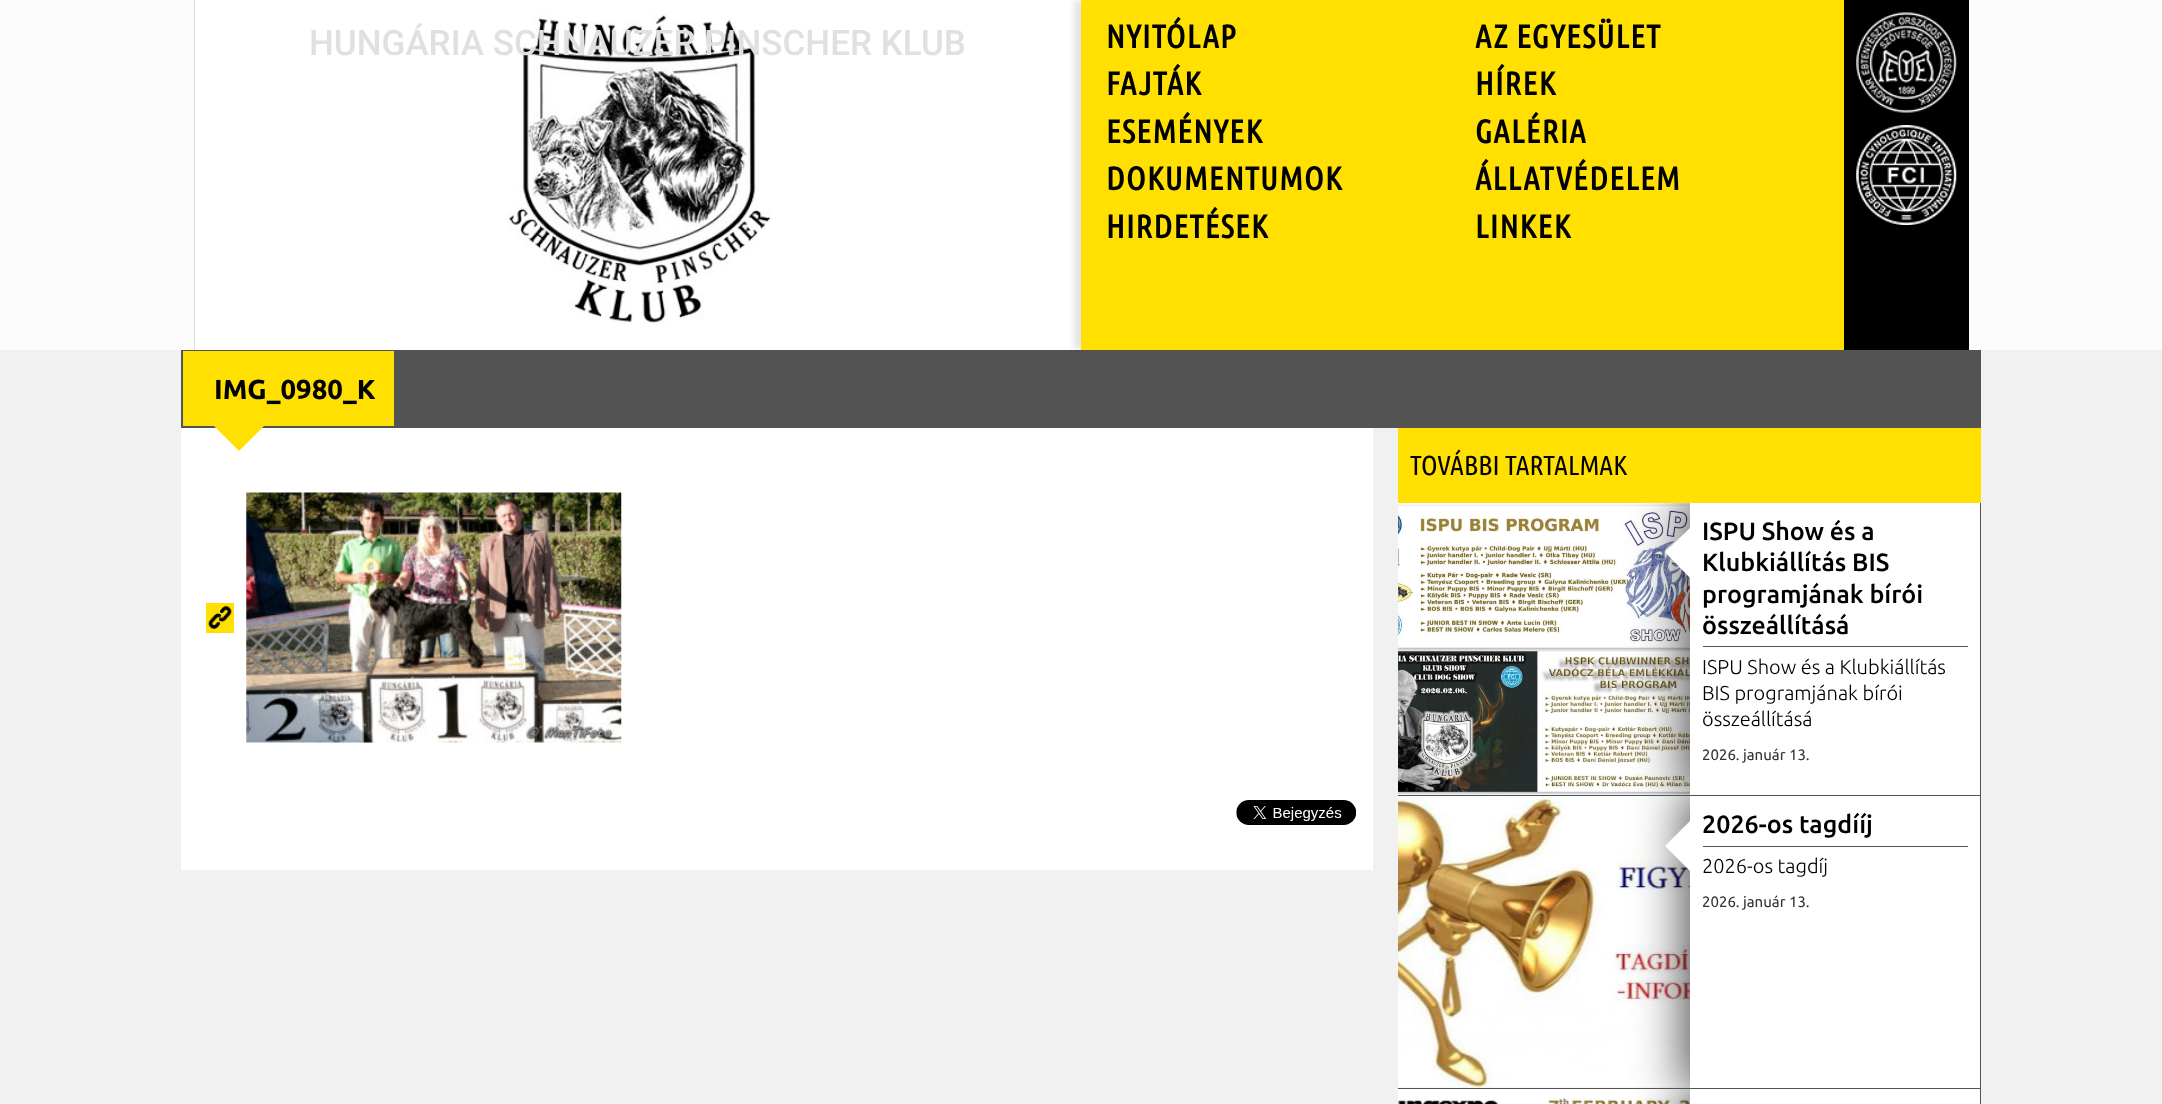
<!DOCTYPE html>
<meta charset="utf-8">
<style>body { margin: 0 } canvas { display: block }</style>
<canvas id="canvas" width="2162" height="1104"></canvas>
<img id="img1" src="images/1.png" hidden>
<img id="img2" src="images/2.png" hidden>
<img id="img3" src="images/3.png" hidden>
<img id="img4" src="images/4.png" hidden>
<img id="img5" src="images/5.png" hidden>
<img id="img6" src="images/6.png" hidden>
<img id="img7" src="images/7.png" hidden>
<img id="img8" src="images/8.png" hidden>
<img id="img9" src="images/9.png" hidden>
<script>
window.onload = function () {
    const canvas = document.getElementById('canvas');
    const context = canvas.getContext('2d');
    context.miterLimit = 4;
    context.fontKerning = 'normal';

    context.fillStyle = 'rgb(241, 241, 241)';
    context.fillRect(0, 0, 2162, 1104);
    context.fillStyle = 'rgb(252, 252, 252)';
    context.fillRect(0, 0, 2162, 350);
    context.fillStyle = 'rgb(255, 255, 255)';
    context.fillRect(195, 0, 886, 350);
    context.fillStyle = 'rgb(255, 224, 0)';
    context.fillRect(1081, 0, 763, 350);
    context.fillStyle = 'rgb(83, 83, 83)';
    context.fillRect(181, 350, 1800, 78);
    context.save();
    context.beginPath();
    context.moveTo(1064, 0);
    context.lineTo(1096, 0);
    context.lineTo(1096, 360);
    context.lineTo(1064, 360);
    context.closePath();
    context.moveTo(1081, 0);
    context.lineTo(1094, 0);
    context.lineTo(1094, 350);
    context.lineTo(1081, 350);
    context.closePath();
    context.clip('evenodd');
    context.fillStyle = 'rgba(0, 0, 0, 0.1)';
    context.filter = 'blur(3px)';
    context.beginPath();
    context.rect(1074, 0, 12, 350);
    context.fill();
    context.filter = 'none';
    context.restore();
    context.fillStyle = 'rgb(0, 0, 0)';
    context.fillRect(1844, 0, 125, 350);
    context.drawImage(document.getElementById('img1'), 1856, 12, 101, 101);
    context.drawImage(document.getElementById('img2'), 1856, 125, 101, 100);
    context.fillStyle = 'rgb(222, 222, 222)';
    context.fillRect(194, 0, 1, 350);
    context.drawImage(document.getElementById('img3'), 507, 14, 264, 311);
    context.fillStyle = 'rgb(255, 224, 0)';
    context.fillRect(183, 351, 211, 75);
    context.fillStyle = 'rgb(255, 255, 255)';
    context.fillRect(181, 428, 1192, 442);
    context.fillStyle = 'rgb(255, 224, 0)';
    context.beginPath();
    context.moveTo(214, 426);
    context.lineTo(264, 426);
    context.lineTo(239, 451);
    context.closePath();
    context.fill();
    context.fillRect(206, 603, 28, 30);
    context.drawImage(document.getElementById('img4'), 208, 606, 24, 23);
    context.drawImage(document.getElementById('img5'), 246, 492, 376, 251);
    context.drawImage(document.getElementById('img6'), 1236, 800, 121, 25);
    context.fillRect(1398, 428, 583, 75);
    context.fillStyle = 'rgb(83, 83, 83)';
    context.fillRect(1398, 795, 583, 1);
    context.drawImage(document.getElementById('img7'), 1398, 503, 292, 291);
    context.drawImage(document.getElementById('img8'), 1398, 796, 292, 292);
    context.save();
    context.beginPath();
    context.rect(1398, 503, 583, 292);
    context.clip();
    context.fillStyle = 'rgba(0, 0, 0, 0.7)';
    context.filter = 'blur(25px)';
    context.beginPath();
    context.rect(1684, 496, 304, 305);
    context.fill();
    context.filter = 'none';
    context.restore();
    context.fillStyle = 'rgb(255, 255, 255)';
    context.fillRect(1690, 503, 290, 292);
    context.fillStyle = 'rgb(83, 83, 83)';
    context.fillRect(1980, 503, 1, 292);
    context.fillStyle = 'rgb(255, 255, 255)';
    context.beginPath();
    context.moveTo(1690, 528);
    context.lineTo(1690, 578);
    context.lineTo(1665, 552);
    context.closePath();
    context.fill();
    context.fillStyle = 'rgb(83, 83, 83)';
    context.fillRect(1703, 646, 265, 1);
    context.fillRect(1398, 1088, 583, 1);
    context.drawImage(document.getElementById('img9'), 1398, 1089, 292, 15);
    context.save();
    context.beginPath();
    context.rect(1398, 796, 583, 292);
    context.clip();
    context.fillStyle = 'rgba(0, 0, 0, 0.7)';
    context.filter = 'blur(25px)';
    context.beginPath();
    context.rect(1684, 790, 304, 304);
    context.fill();
    context.filter = 'none';
    context.restore();
    context.fillStyle = 'rgb(255, 255, 255)';
    context.fillRect(1690, 796, 290, 292);
    context.fillStyle = 'rgb(83, 83, 83)';
    context.fillRect(1980, 796, 1, 292);
    context.fillStyle = 'rgb(255, 255, 255)';
    context.beginPath();
    context.moveTo(1690, 821);
    context.lineTo(1690, 871);
    context.lineTo(1665, 846);
    context.closePath();
    context.fill();
    context.fillStyle = 'rgb(83, 83, 83)';
    context.fillRect(1703, 846, 265, 1);
    context.save();
    context.beginPath();
    context.rect(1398, 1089, 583, 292);
    context.clip();
    context.fillStyle = 'rgba(0, 0, 0, 0.7)';
    context.filter = 'blur(25px)';
    context.beginPath();
    context.rect(1684, 1083, 304, 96);
    context.fill();
    context.filter = 'none';
    context.restore();
    context.fillStyle = 'rgb(255, 255, 255)';
    context.fillRect(1690, 1089, 290, 15);
    context.fillStyle = 'rgb(83, 83, 83)';
    context.fillRect(1980, 1089, 1, 15);
    context.letterSpacing = '1.25px';
    context.font = 'bold 32.5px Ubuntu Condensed';
    context.fillStyle = 'rgb(0, 0, 0)';
    context.fillText('NYITÓLAP', 1106, 48);
    context.fillText('AZ EGYESÜLET', 1475, 48);
    context.fillText('FAJTÁK', 1106, 95);
    context.fillText('HÍREK', 1475, 95);
    context.fillText('ESEMÉNYEK', 1106, 143);
    context.fillText('GALÉRIA', 1475, 143);
    context.fillText('DOKUMENTUMOK', 1106, 190);
    context.fillText('ÁLLATVÉDELEM', 1475, 190);
    context.fillText('HIRDETÉSEK', 1106, 238);
    context.fillText('LINKEK', 1475, 238);
    context.letterSpacing = '0px';
    context.font = '500 35px Roboto';
    context.fillStyle = 'rgb(224, 224, 224)';
    context.fillText('HUNGÁRIA SCHNAUZER PINSCHER KLUB', 309, 55);
    context.font = 'bold 27.5px Ubuntu';
    context.fillStyle = 'rgb(0, 0, 0)';
    context.fillText('IMG_0980_K', 214, 399);
    context.font = '27.5px Ubuntu Condensed';
    context.fillText('TOVÁBBI TARTALMAK', 1410, 475);
    context.font = '500 25px Ubuntu';
    context.fillText('ISPU Show és a', 1702, 540);
    context.fillText('Klubkiállítás BIS', 1702, 571);
    context.fillText('programjának bírói', 1702, 603);
    context.fillText('összeállításá', 1702, 634);
    context.font = '300 20px Ubuntu';
    context.fillText('ISPU Show és a Klubkiállítás', 1702, 674);
    context.fillText('BIS programjának bírói', 1702, 700);
    context.fillText('összeállításá', 1702, 726);
    context.font = '15px Ubuntu';
    context.fillStyle = 'rgb(51, 51, 51)';
    context.fillText('2026. január 13.', 1702, 760);
    context.font = '500 25px Ubuntu';
    context.fillStyle = 'rgb(0, 0, 0)';
    context.fillText('2026-os tagdííj', 1702, 833);
    context.font = '300 20px Ubuntu';
    context.fillText('2026-os tagdíj', 1702, 873);
    context.font = '15px Ubuntu';
    context.fillStyle = 'rgb(51, 51, 51)';
    context.fillText('2026. január 13.', 1702, 907);
};
</script>
